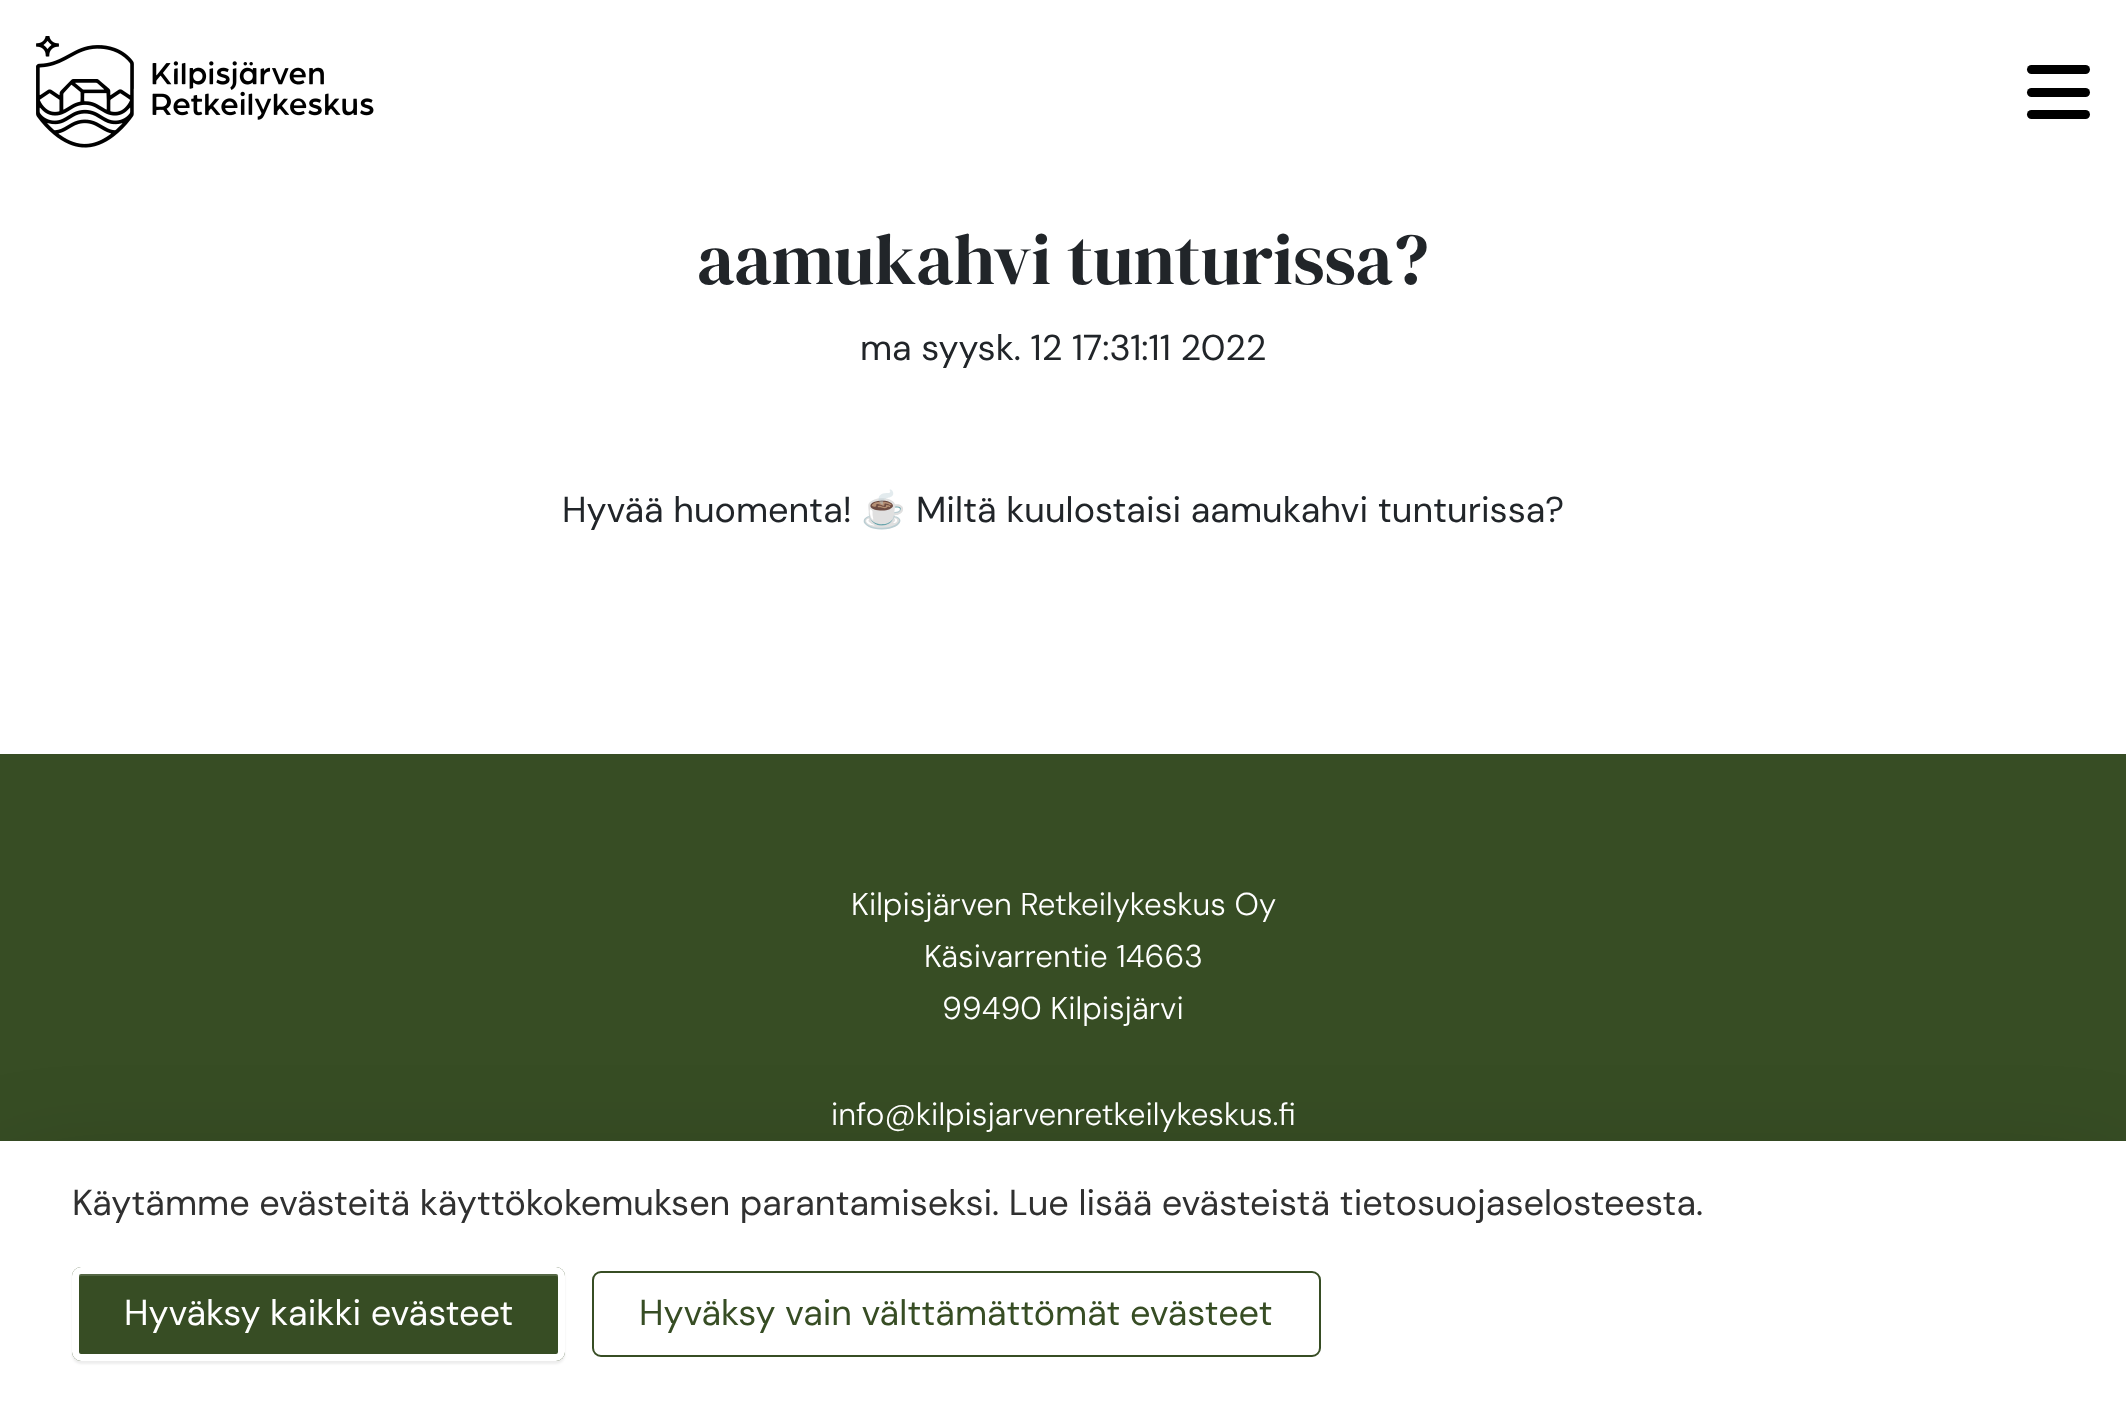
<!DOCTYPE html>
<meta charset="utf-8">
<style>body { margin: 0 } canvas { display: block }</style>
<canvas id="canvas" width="2126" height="1415"></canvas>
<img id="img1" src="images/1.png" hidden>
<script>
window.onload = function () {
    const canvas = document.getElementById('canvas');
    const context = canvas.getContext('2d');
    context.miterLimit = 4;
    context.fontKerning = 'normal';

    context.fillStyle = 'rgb(255, 255, 255)';
    context.fillRect(0, 0, 2126, 1415);
    context.drawImage(document.getElementById('img1'), 36, 36, 338, 112);
    context.fillStyle = 'rgb(0, 0, 0)';
    context.beginPath();
    context.roundRect(2027, 65, 63, 9, 4.5);
    context.fill();
    context.beginPath();
    context.roundRect(2027, 88, 63, 9, 4.5);
    context.fill();
    context.beginPath();
    context.roundRect(2027, 110, 63, 9, 4.5);
    context.fill();
    context.fillStyle = 'rgb(55, 77, 36)';
    context.fillRect(0, 754, 2126, 387);
    context.fillStyle = 'rgba(0, 0, 0, 0.18)';
    context.filter = 'blur(54px)';
    context.beginPath();
    context.rect(0, 1177, 2126, 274);
    context.fill();
    context.filter = 'none';
    context.fillStyle = 'rgb(255, 255, 255)';
    context.fillRect(0, 1141, 2126, 274);
    context.fillStyle = 'rgba(0, 0, 0, 0.07)';
    context.filter = 'blur(1px)';
    context.beginPath();
    context.roundRect(72, 1269, 493, 95, 9);
    context.fill();
    context.filter = 'none';
    context.fillStyle = 'rgb(55, 77, 36)';
    context.beginPath();
    context.roundRect(72, 1267, 493, 94, 9);
    context.fill();
    context.fillStyle = 'rgb(85, 104, 69)';
    context.beginPath();
    context.moveTo(81, 1276);
    context.lineTo(556, 1276);
    context.bezierCurveTo(557, 1276, 558, 1277, 558, 1278);
    context.bezierCurveTo(558, 1276, 558, 1274, 556, 1274);
    context.lineTo(80, 1274);
    context.lineTo(79, 1275);
    context.lineTo(79, 1278);
    context.bezierCurveTo(79, 1277, 80, 1276, 81, 1276);
    context.closePath();
    context.fill();
    context.beginPath();
    context.roundRect(75.5, 1270.5, 486, 87, 5.5);
    context.strokeStyle = 'rgb(255, 255, 255)';
    context.lineWidth = 7;
    context.stroke();
    context.beginPath();
    context.roundRect(593, 1272, 727, 84, 8);
    context.strokeStyle = 'rgb(55, 77, 36)';
    context.lineWidth = 2;
    context.stroke();
    context.font = '72px DM Serif Display';
    context.fillStyle = 'rgb(33, 37, 41)';
    context.fillText('aamukahvi tunturissa?', 697, 284);
    context.font = '36px DM Sans';
    context.fillText('ma syysk. 12 17:31:11 2022', 860, 360);
    context.fillText('Hyvää huomenta!', 562, 522);
    context.font = '36px Noto Color Emoji';
    context.fillText('☕️', 861, 522);
    context.font = '36px DM Sans';
    context.fillText('Miltä kuulostaisi aamukahvi tunturissa?', 916, 522);
    context.font = '300 31.5px DM Sans';
    context.fillStyle = 'rgb(255, 255, 255)';
    context.fillText('Kilpisjärven Retkeilykeskus Oy', 851, 915);
    context.fillText('Käsivarrentie 14663', 924, 967);
    context.fillText('99490 Kilpisjärvi', 942, 1019);
    context.fillText('info@kilpisjarvenretkeilykeskus.fi', 831, 1125);
    context.font = '36px DM Sans';
    context.fillStyle = 'rgb(48, 48, 48)';
    context.fillText('Käytämme evästeitä käyttökokemuksen parantamiseksi. Lue lisää evästeistä tietosuojaselosteesta.', 72, 1215);
    context.fillStyle = 'rgb(255, 255, 255)';
    context.fillText('Hyväksy kaikki evästeet', 124, 1325);
    context.fillStyle = 'rgb(55, 77, 36)';
    context.fillText('Hyväksy vain välttämättömät evästeet', 639, 1325);
};
</script>
